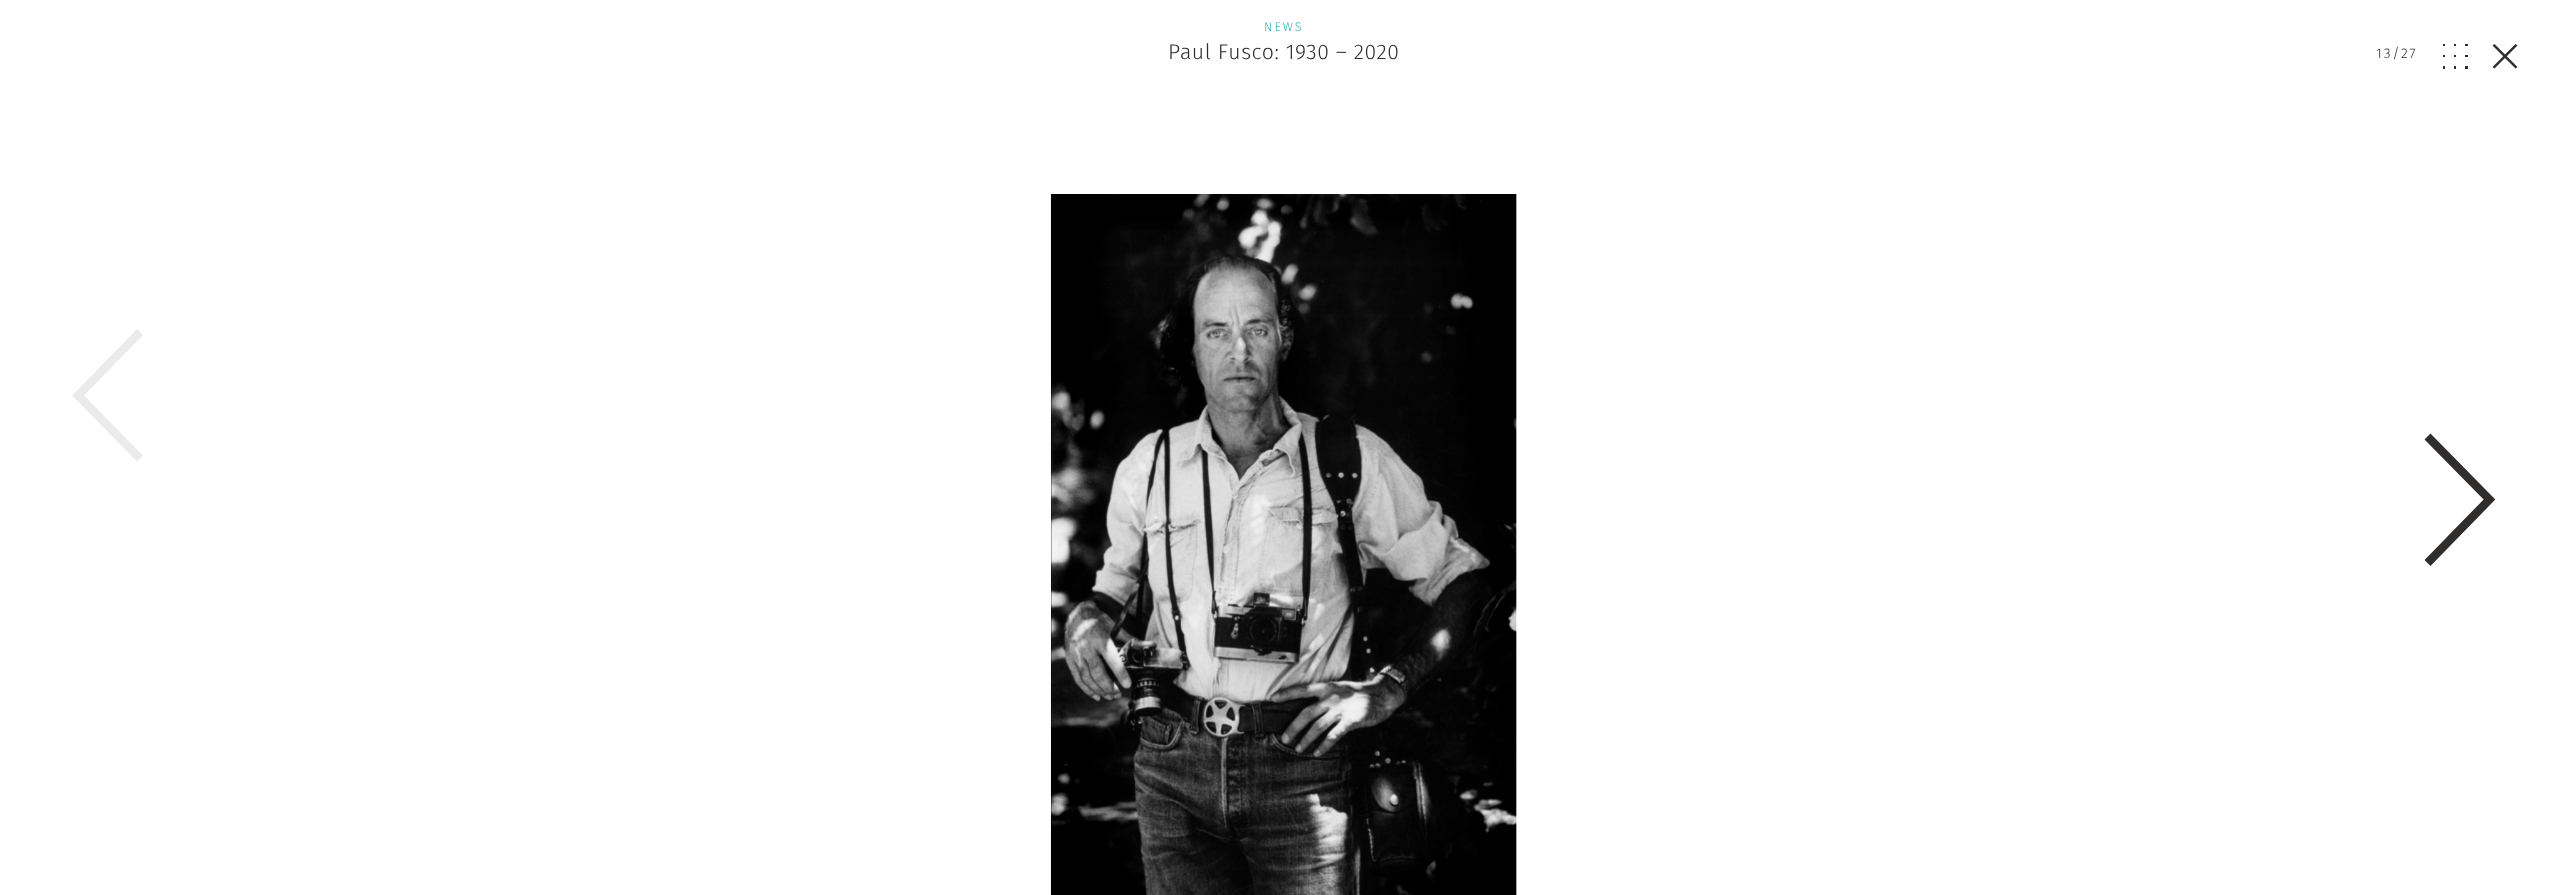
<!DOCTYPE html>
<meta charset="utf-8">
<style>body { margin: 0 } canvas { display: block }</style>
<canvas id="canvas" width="2567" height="895"></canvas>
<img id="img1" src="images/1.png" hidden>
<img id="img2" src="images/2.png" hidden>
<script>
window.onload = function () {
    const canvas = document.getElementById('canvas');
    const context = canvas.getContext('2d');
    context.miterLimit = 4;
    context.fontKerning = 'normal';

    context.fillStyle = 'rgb(255, 255, 255)';
    context.fillRect(0, 0, 2567, 895);
    context.drawImage(document.getElementById('img1'), 2443, 44, 25, 25);
    context.fillStyle = 'rgb(48, 45, 45)';
    context.beginPath();
    context.moveTo(2494.5, 44);
    context.lineTo(2517.5, 67);
    context.lineTo(2515.5, 68.5);
    context.lineTo(2492.5, 45.5);
    context.closePath();
    context.fill();
    context.beginPath();
    context.moveTo(2492.5, 67);
    context.lineTo(2515.5, 44);
    context.lineTo(2517.5, 45.5);
    context.lineTo(2494.5, 68.5);
    context.closePath();
    context.fill();
    context.beginPath();
    context.moveTo(140, 332);
    context.lineTo(78, 395.5);
    context.lineTo(140, 458.5);
    context.strokeStyle = 'rgb(235, 235, 235)';
    context.lineWidth = 8.3;
    context.stroke();
    context.fillStyle = 'rgb(0, 0, 0)';
    context.fillRect(1051, 194, 465, 701);
    context.drawImage(document.getElementById('img2'), 1050, 194, 467, 701);
    context.beginPath();
    context.moveTo(2427.5, 563);
    context.lineTo(2489.5, 499.5);
    context.lineTo(2427.5, 436.5);
    context.strokeStyle = 'rgb(48, 45, 45)';
    context.stroke();
    context.letterSpacing = '2px';
    context.font = '300 12.5px Fira Sans';
    context.fillStyle = 'rgb(39, 180, 178)';
    context.fillText('NEWS', 1264, 31);
    context.letterSpacing = '0.5px';
    context.font = '300 21.25px Fira Sans';
    context.fillStyle = 'rgb(48, 45, 45)';
    context.fillText('Paul Fusco: 1930 – 2020', 1168, 59);
    context.letterSpacing = '2px';
    context.font = '300 14px Fira Sans';
    context.fillText('13/', 2376, 58);
    context.fillText('27', 2401, 58);
};
</script>
